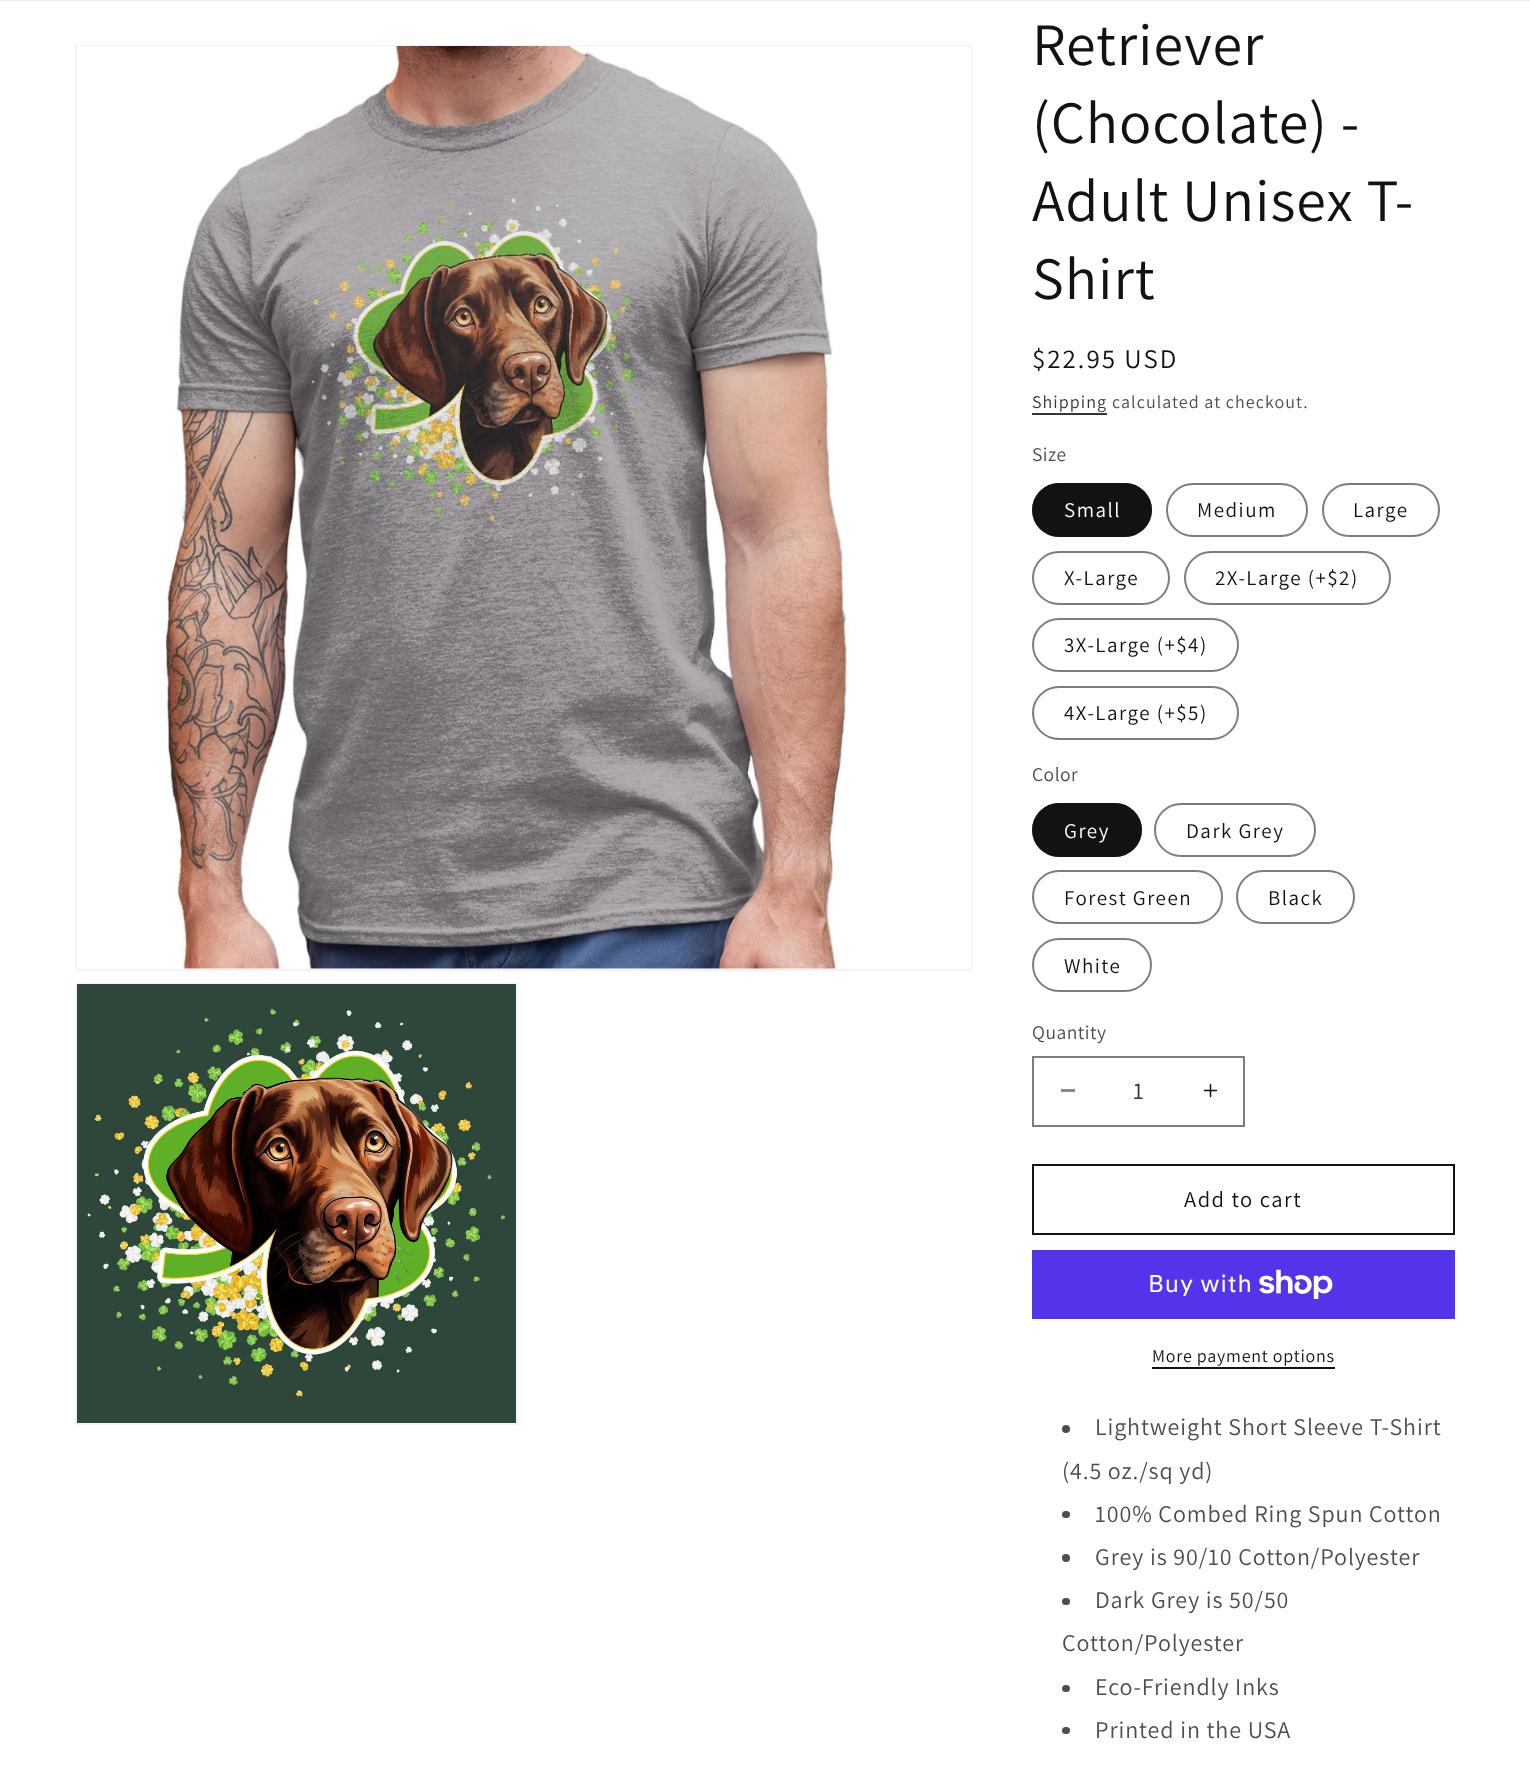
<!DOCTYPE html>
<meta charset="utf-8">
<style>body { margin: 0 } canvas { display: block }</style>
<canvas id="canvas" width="1530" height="1792"></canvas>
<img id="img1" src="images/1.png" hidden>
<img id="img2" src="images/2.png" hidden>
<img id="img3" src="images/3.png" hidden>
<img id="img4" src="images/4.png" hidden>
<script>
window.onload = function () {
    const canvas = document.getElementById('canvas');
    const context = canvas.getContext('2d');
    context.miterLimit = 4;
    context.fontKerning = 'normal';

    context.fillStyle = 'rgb(255, 255, 255)';
    context.fillRect(0, 0, 1530, 1792);
    context.fillStyle = 'rgb(236, 236, 236)';
    context.fillRect(0, 0, 1530, 1);
    context.strokeStyle = 'rgb(243, 243, 243)';
    context.lineWidth = 2;
    context.strokeRect(76, 46, 895, 924);
    context.drawImage(document.getElementById('img1'), 77, 46, 894, 923);
    context.strokeRect(76, 984, 441, 440);
    context.drawImage(document.getElementById('img2'), 77, 984, 439, 439);
    context.fillStyle = 'rgb(54, 54, 54)';
    context.fillRect(1032, 413, 75, 2);
    context.fillStyle = 'rgb(18, 18, 18)';
    context.beginPath();
    context.roundRect(1032, 483, 120, 54, 27);
    context.fill();
    context.beginPath();
    context.roundRect(1033, 484, 118, 52, 26);
    context.strokeStyle = 'rgba(18, 18, 18, 0.55)';
    context.stroke();
    context.beginPath();
    context.roundRect(1167, 484, 140, 52, 26);
    context.strokeStyle = 'rgb(125, 125, 125)';
    context.stroke();
    context.beginPath();
    context.roundRect(1323, 484, 116, 52, 26);
    context.stroke();
    context.beginPath();
    context.roundRect(1033, 552, 136, 52, 26);
    context.stroke();
    context.beginPath();
    context.roundRect(1185, 552, 205, 52, 26);
    context.stroke();
    context.beginPath();
    context.roundRect(1033, 619, 205, 52, 26);
    context.stroke();
    context.beginPath();
    context.roundRect(1033, 687, 205, 52, 26);
    context.stroke();
    context.beginPath();
    context.roundRect(1032, 803, 110, 54, 27);
    context.fill();
    context.beginPath();
    context.roundRect(1033, 804, 108, 52, 26);
    context.strokeStyle = 'rgba(18, 18, 18, 0.55)';
    context.stroke();
    context.beginPath();
    context.roundRect(1155, 804, 160, 52, 26);
    context.strokeStyle = 'rgb(125, 125, 125)';
    context.stroke();
    context.beginPath();
    context.roundRect(1033, 871, 189, 52, 26);
    context.stroke();
    context.beginPath();
    context.roundRect(1237, 871, 117, 52, 26);
    context.stroke();
    context.beginPath();
    context.roundRect(1033, 939, 118, 52, 26);
    context.stroke();
    context.fillStyle = 'rgb(137, 137, 137)';
    context.fillRect(1061, 1089, 14, 3);
    context.drawImage(document.getElementById('img3'), 1203, 1083, 15, 15);
    context.strokeRect(1033, 1057, 211, 69);
    context.strokeStyle = 'rgb(18, 18, 18)';
    context.strokeRect(1033, 1165, 421, 69);
    context.fillStyle = 'rgb(84, 51, 235)';
    context.fillRect(1032, 1250, 423, 69);
    context.drawImage(document.getElementById('img4'), 1259, 1269, 74, 30);
    context.fillStyle = 'rgb(18, 18, 18)';
    context.fillRect(1152, 1367, 183, 2);
    context.fillStyle = 'rgb(77, 77, 77)';
    context.beginPath();
    context.arc(1066, 1429, 4, 0, 2 * Math.PI);
    context.fill();
    context.beginPath();
    context.roundRect(1062, 1511, 8, 7, 3.5);
    context.fill();
    context.beginPath();
    context.arc(1066, 1558, 4, 0, 2 * Math.PI);
    context.fill();
    context.beginPath();
    context.roundRect(1062, 1598, 8, 7, 3.5);
    context.fill();
    context.beginPath();
    context.roundRect(1062, 1685, 8, 7, 3.5);
    context.fill();
    context.beginPath();
    context.roundRect(1062, 1727, 8, 7, 3.5);
    context.fill();
    context.letterSpacing = '0.9px';
    context.font = '60px Assistant';
    context.fillStyle = 'rgb(18, 18, 18)';
    context.fillText('Retriever', 1032, 65);
    context.fillText('(Chocolate) -', 1032, 143);
    context.fillText('Adult Unisex T-', 1032, 221);
    context.fillText('Shirt', 1032, 299);
    context.letterSpacing = '2px';
    context.font = '27px Assistant';
    context.fillText('$22.95 USD', 1032, 368);
    context.letterSpacing = '1.05px';
    context.font = '18px Assistant';
    context.fillStyle = 'rgb(54, 54, 54)';
    context.fillText('Shipping', 1032, 408);
    context.fillStyle = 'rgb(77, 77, 77)';
    context.fillText('calculated at checkout.', 1112, 408);
    context.letterSpacing = '0.5px';
    context.font = '19.5px Assistant';
    context.fillText('Size', 1032, 461);
    context.letterSpacing = '1.5px';
    context.font = '21px Assistant';
    context.fillStyle = 'rgb(255, 255, 255)';
    context.fillText('Small', 1064, 517);
    context.fillStyle = 'rgb(18, 18, 18)';
    context.fillText('Medium', 1197, 517);
    context.fillText('Large', 1353, 517);
    context.fillText('X-Large', 1064, 585);
    context.fillText('2X-Large (+$2)', 1215, 585);
    context.fillText('3X-Large (+$4)', 1064, 652);
    context.fillText('4X-Large (+$5)', 1064, 720);
    context.letterSpacing = '0.5px';
    context.font = '19.5px Assistant';
    context.fillStyle = 'rgb(77, 77, 77)';
    context.fillText('Color', 1032, 781);
    context.letterSpacing = '1.5px';
    context.font = '21px Assistant';
    context.fillStyle = 'rgb(255, 255, 255)';
    context.fillText('Grey', 1064, 838);
    context.fillStyle = 'rgb(18, 18, 18)';
    context.fillText('Dark Grey', 1186, 838);
    context.fillText('Forest Green', 1064, 905);
    context.fillText('Black', 1268, 905);
    context.fillText('White', 1064, 973);
    context.letterSpacing = '0.5px';
    context.font = '19.5px Assistant';
    context.fillStyle = 'rgb(77, 77, 77)';
    context.fillText('Quantity', 1032, 1039);
    context.letterSpacing = '0px';
    context.font = '24px Assistant';
    context.fillStyle = 'rgb(54, 54, 54)';
    context.fillText('1', 1133, 1099);
    context.letterSpacing = '1.5px';
    context.font = '22.5px Assistant';
    context.fillStyle = 'rgb(18, 18, 18)';
    context.fillText('Add to cart', 1184, 1207);
    context.letterSpacing = '0.9px';
    context.font = '24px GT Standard';
    context.fillStyle = 'rgb(255, 255, 255)';
    context.fillText('Buy with', 1148, 1292);
    context.letterSpacing = '0.75px';
    context.font = '18px Assistant';
    context.fillStyle = 'rgb(18, 18, 18)';
    context.fillText('More payment options', 1152, 1362);
    context.letterSpacing = '0.9px';
    context.font = '24px Assistant';
    context.fillStyle = 'rgb(77, 77, 77)';
    context.fillText('Lightweight Short Sleeve T-Shirt', 1095, 1435);
    context.fillText('(4.5 oz./sq yd)', 1062, 1479);
    context.fillText('100% Combed Ring Spun Cotton', 1095, 1522);
    context.fillText('Grey is 90/10 Cotton/Polyester', 1095, 1565);
    context.fillText('Dark Grey is 50/50', 1095, 1608);
    context.fillText('Cotton/Polyester', 1062, 1651);
    context.fillText('Eco-Friendly Inks', 1095, 1695);
    context.fillText('Printed in the USA', 1095, 1738);
};
</script>
